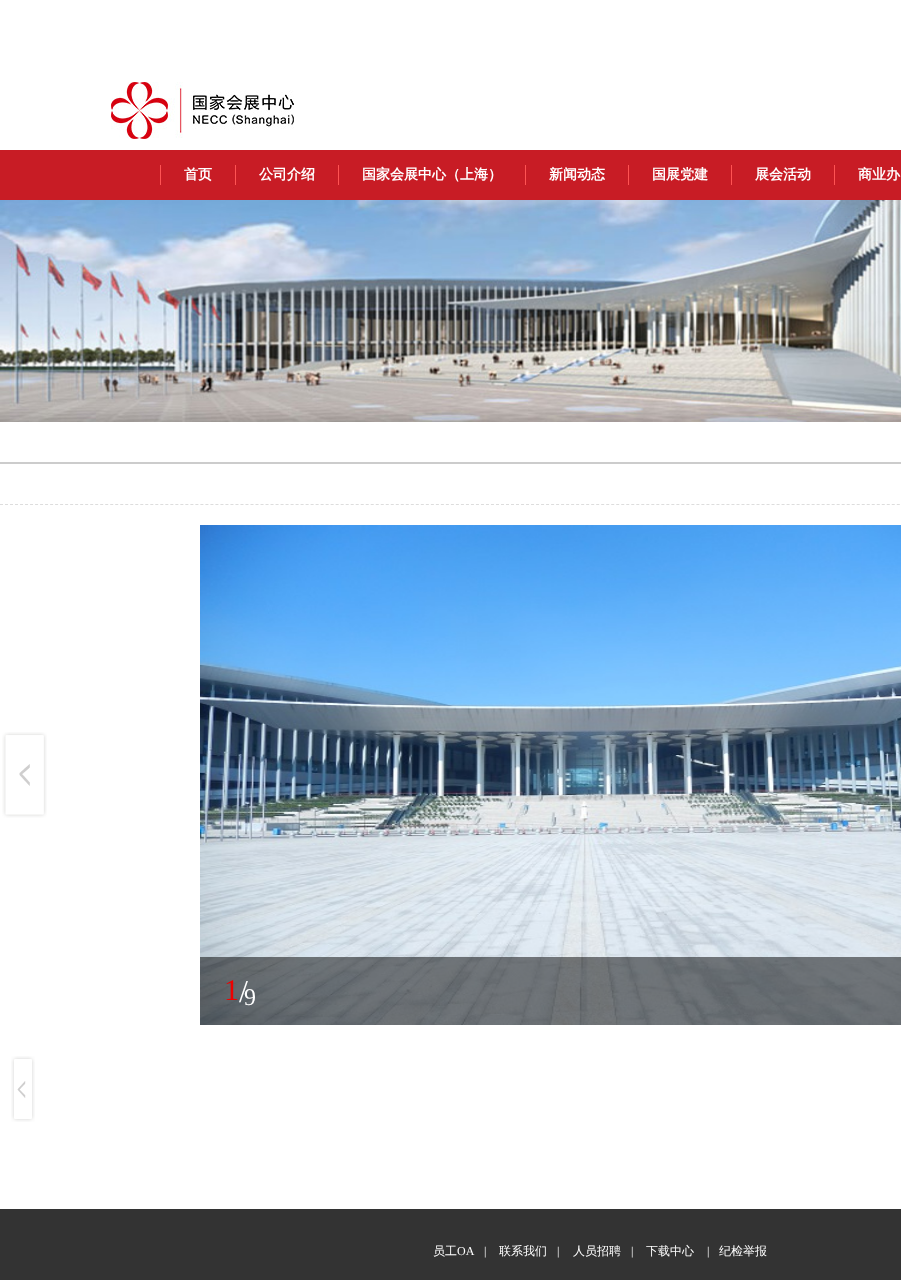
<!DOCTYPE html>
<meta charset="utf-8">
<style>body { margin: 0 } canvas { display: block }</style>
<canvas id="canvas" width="901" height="1280"></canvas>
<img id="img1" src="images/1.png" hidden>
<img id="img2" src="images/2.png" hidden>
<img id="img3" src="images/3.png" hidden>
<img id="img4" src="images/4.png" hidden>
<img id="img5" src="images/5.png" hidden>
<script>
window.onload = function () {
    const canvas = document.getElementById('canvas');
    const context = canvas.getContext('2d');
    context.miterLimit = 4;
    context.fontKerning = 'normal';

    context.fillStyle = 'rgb(255, 255, 255)';
    context.fillRect(0, 0, 901, 1280);
    context.drawImage(document.getElementById('img1'), 111, 82, 183, 57);
    context.fillStyle = 'rgb(200, 28, 37)';
    context.fillRect(0, 150, 901, 50);
    context.fillStyle = 'rgb(255, 83, 83)';
    context.fillRect(160, 165, 1, 20);
    context.fillRect(235, 165, 1, 20);
    context.fillRect(338, 165, 1, 20);
    context.fillRect(525, 165, 1, 20);
    context.fillRect(628, 165, 1, 20);
    context.fillRect(731, 165, 1, 20);
    context.fillRect(834, 165, 1, 20);
    context.drawImage(document.getElementById('img2'), 0, 200, 901, 222);
    context.fillStyle = 'rgb(204, 204, 204)';
    context.fillRect(0, 462, 901, 2);
    context.beginPath();
    context.moveTo(0, 504.5);
    context.lineTo(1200, 504.5);
    context.strokeStyle = 'rgb(221, 221, 221)';
    context.setLineDash([3, 2.01]);
    context.stroke();
    context.drawImage(document.getElementById('img3'), 2, 732, 45, 86);
    context.drawImage(document.getElementById('img4'), 200, 525, 701, 500);
    context.fillStyle = 'rgba(0, 0, 0, 0.5)';
    context.fillRect(200, 957, 701, 68);
    context.drawImage(document.getElementById('img5'), 11, 1056, 24, 66);
    context.fillStyle = 'rgb(51, 51, 51)';
    context.fillRect(0, 1209, 901, 71);
    context.font = 'bold 14px WenQuanYi Zen Hei';
    context.fillStyle = 'rgb(255, 255, 255)';
    context.fillText('首页', 184, 179);
    context.fillText('公司介绍', 259, 179);
    context.fillText('国家会展中心（上海）', 362, 179);
    context.fillText('新闻动态', 549, 179);
    context.fillText('国展党建', 652, 179);
    context.fillText('展会活动', 755, 179);
    context.fillText('商业办', 858, 179);
    context.font = '30px Liberation Serif';
    context.fillStyle = 'rgb(237, 0, 0)';
    context.fillText('1', 224, 1000);
    context.font = '32px Liberation Serif';
    context.fillStyle = 'rgb(255, 255, 255)';
    context.fillText('/', 239, 1002);
    context.font = '24px Liberation Serif';
    context.fillText('9', 244, 1005);
    context.font = '500 12px WenQuanYi Zen Hei';
    context.fillText('员工', 433, 1255);
    context.font = '12px Liberation Serif';
    context.fillText('OA', 457, 1255);
    context.fillText('|', 484, 1255);
    context.font = '500 12px WenQuanYi Zen Hei';
    context.fillText('联系我们', 499, 1255);
    context.font = '12px Liberation Serif';
    context.fillText('|', 557, 1255);
    context.font = '500 12px WenQuanYi Zen Hei';
    context.fillText('人员招聘', 573, 1255);
    context.font = '12px Liberation Serif';
    context.fillText('|', 631, 1255);
    context.font = '500 12px WenQuanYi Zen Hei';
    context.fillText('下载中心', 646, 1255);
    context.font = '12px Liberation Serif';
    context.fillText('|', 707, 1255);
    context.font = '500 12px WenQuanYi Zen Hei';
    context.fillText('纪检举报', 719, 1255);
};
</script>
